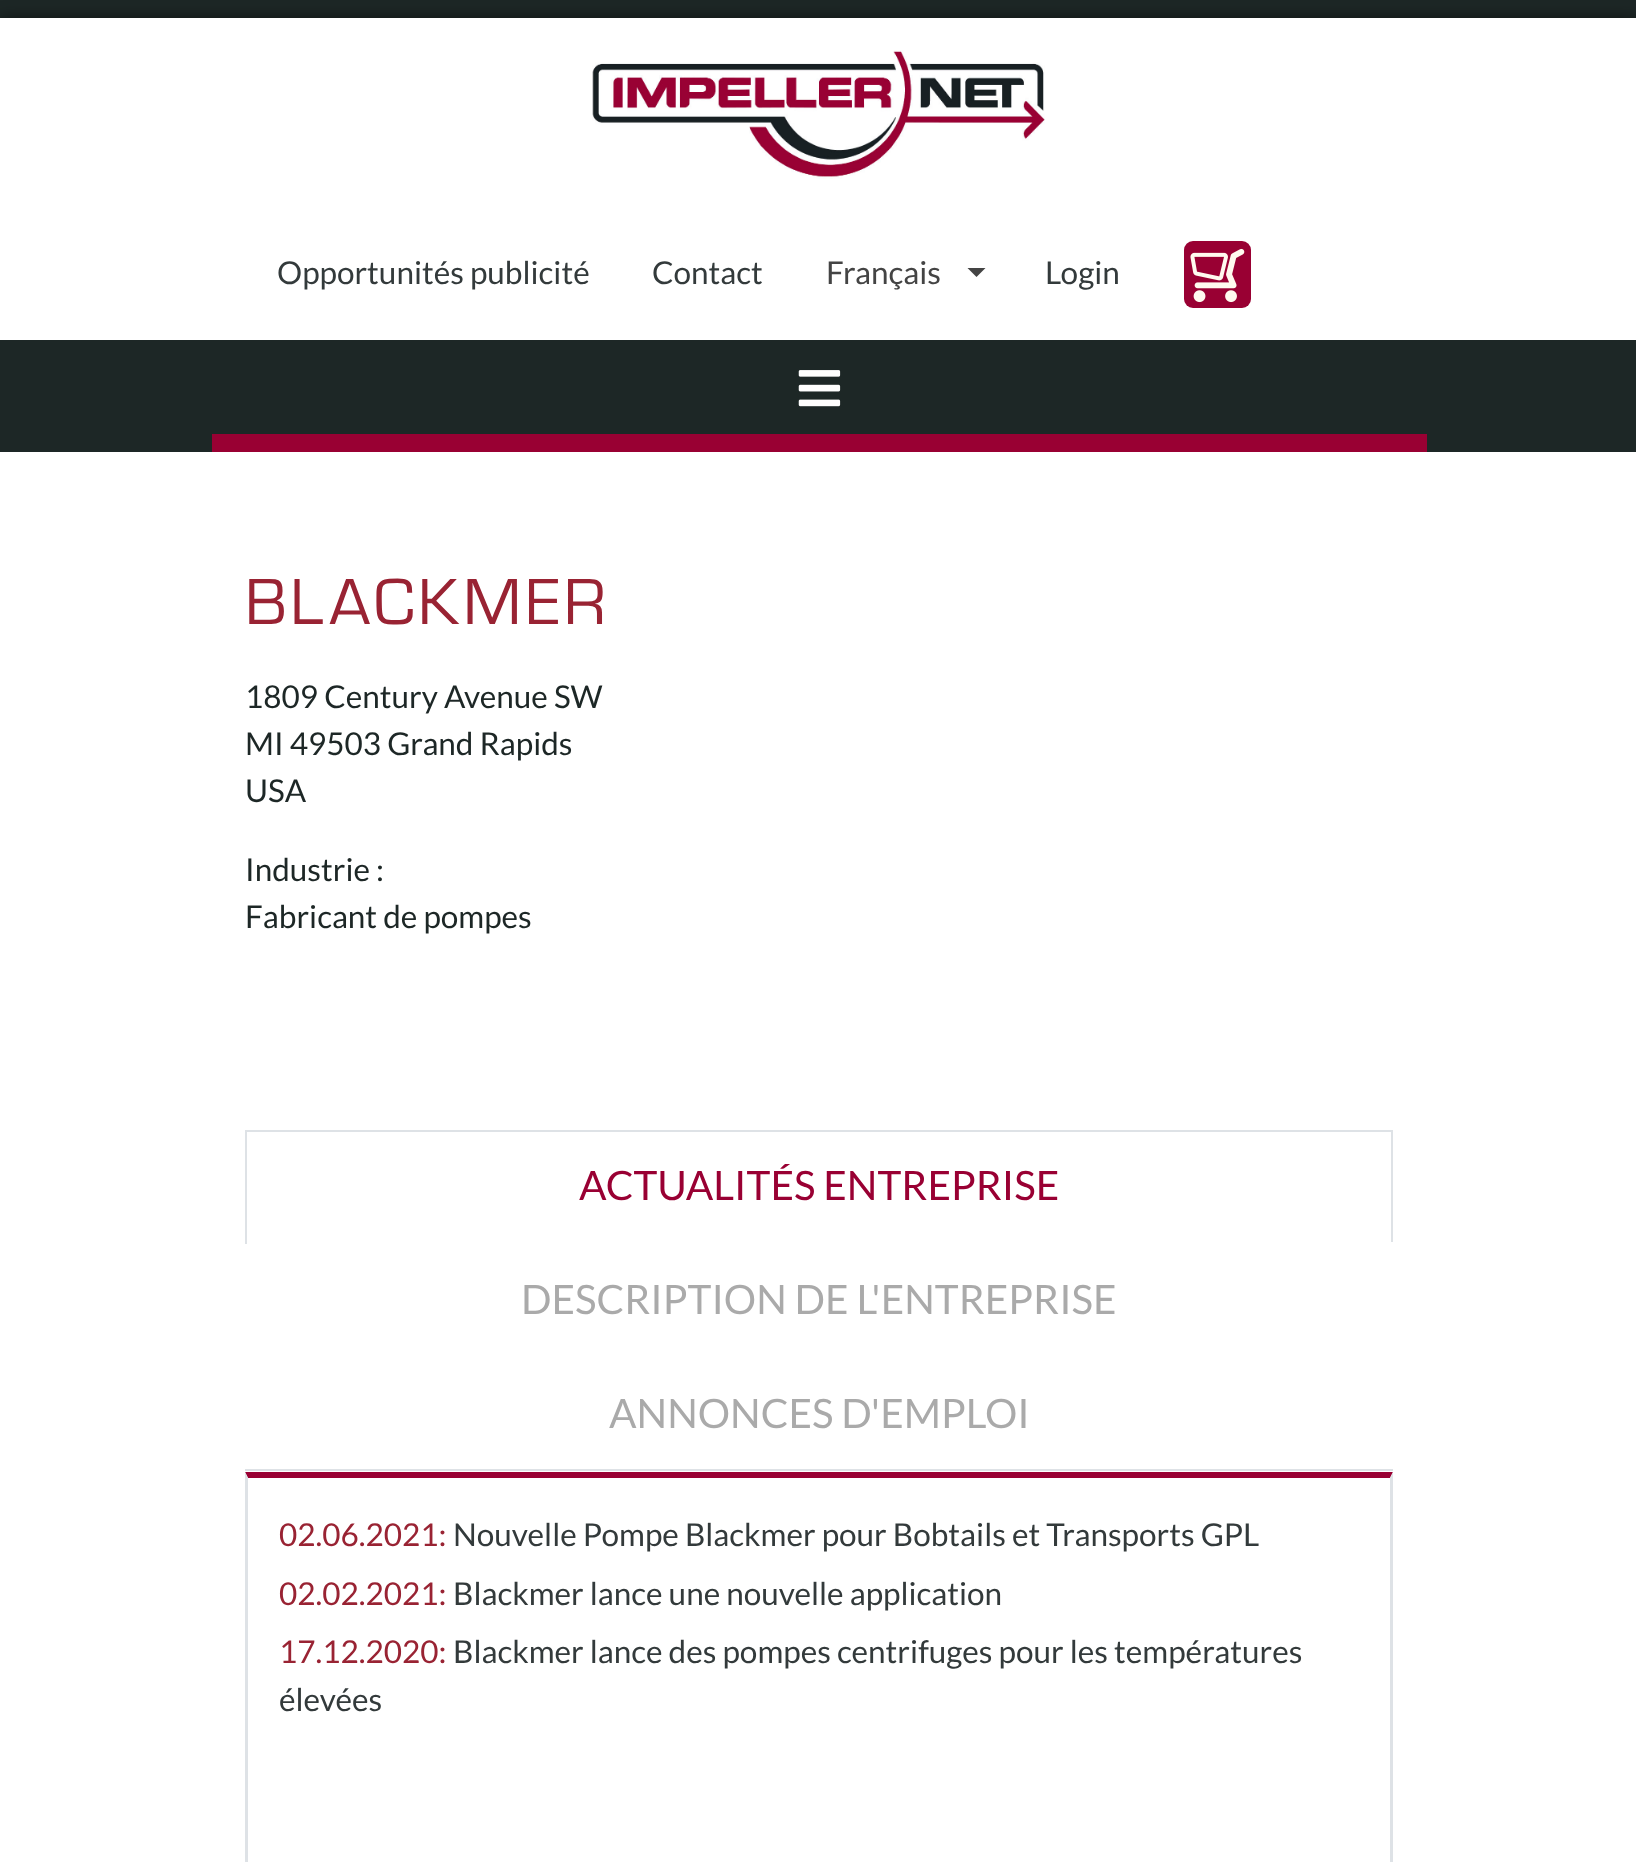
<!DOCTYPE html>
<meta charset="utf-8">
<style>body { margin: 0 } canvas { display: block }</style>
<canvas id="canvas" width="1636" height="1862"></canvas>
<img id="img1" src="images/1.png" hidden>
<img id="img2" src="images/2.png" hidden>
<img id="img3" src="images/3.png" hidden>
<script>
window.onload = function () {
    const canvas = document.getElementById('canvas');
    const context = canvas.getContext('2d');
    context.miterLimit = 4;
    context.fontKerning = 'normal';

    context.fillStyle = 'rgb(255, 255, 255)';
    context.fillRect(0, 0, 1636, 1862);
    context.fillStyle = 'rgb(29, 39, 38)';
    context.fillRect(0, 0, 1636, 18);
    context.fillStyle = 'rgba(0, 0, 0, 0.5)';
    context.filter = 'blur(8px)';
    context.beginPath();
    context.rect(0, 18, 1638, 322);
    context.fill();
    context.filter = 'none';
    context.fillStyle = 'rgb(255, 255, 255)';
    context.fillRect(0, 18, 1636, 322);
    context.drawImage(document.getElementById('img1'), 592, 50, 453, 129);
    context.fillStyle = 'rgb(68, 68, 68)';
    context.beginPath();
    context.moveTo(967.5, 268);
    context.lineTo(985.5, 268);
    context.lineTo(976.5, 277);
    context.closePath();
    context.fill();
    context.fillStyle = 'rgb(153, 0, 51)';
    context.beginPath();
    context.roundRect(1184, 241, 67, 67, 9);
    context.fill();
    context.drawImage(document.getElementById('img2'), 1190, 248, 55, 55);
    context.fillStyle = 'rgb(29, 39, 38)';
    context.fillRect(0, 340, 1636, 112);
    context.drawImage(document.getElementById('img3'), 798, 370, 43, 37);
    context.fillStyle = 'rgb(153, 0, 51)';
    context.fillRect(212, 434, 1215, 18);
    context.fillStyle = 'rgb(222, 226, 230)';
    context.fillRect(245, 1469, 1148, 2);
    context.fillRect(245, 1130, 1148, 2);
    context.fillRect(1391, 1130, 2, 114);
    context.fillStyle = 'rgb(255, 255, 255)';
    context.fillRect(1391, 1242, 2, 2);
    context.fillStyle = 'rgb(222, 226, 230)';
    context.fillRect(245, 1130, 2, 114);
    context.fillStyle = 'rgb(153, 0, 51)';
    context.beginPath();
    context.moveTo(245, 1472);
    context.lineTo(1393, 1472);
    context.lineTo(1390, 1478);
    context.lineTo(248, 1478);
    context.closePath();
    context.fill();
    context.fillStyle = 'rgb(222, 226, 230)';
    context.beginPath();
    context.moveTo(1393, 1472);
    context.lineTo(1393, 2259);
    context.lineTo(1390, 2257);
    context.lineTo(1390, 1478);
    context.closePath();
    context.fill();
    context.beginPath();
    context.moveTo(245, 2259);
    context.lineTo(245, 1472);
    context.lineTo(248, 1478);
    context.lineTo(248, 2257);
    context.closePath();
    context.fill();
    context.font = '31.5px Lato';
    context.fillStyle = 'rgb(51, 58, 59)';
    context.fillText('Opportunités publicité', 277, 284);
    context.fillText('Contact', 652, 284);
    context.fillStyle = 'rgb(68, 68, 68)';
    context.fillText('Français', 826, 284);
    context.fillStyle = 'rgb(51, 58, 59)';
    context.fillText('Login', 1045, 284);
    context.letterSpacing = '3.5px';
    context.font = '67.5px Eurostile';
    context.fillStyle = 'rgb(153, 35, 51)';
    context.fillText('BLACKMER', 245, 624);
    context.letterSpacing = '0px';
    context.font = '31.5px Lato';
    context.fillStyle = 'rgb(29, 39, 38)';
    context.fillText('1809 Century Avenue SW', 245, 708);
    context.fillText('MI 49503 Grand Rapids', 245, 755);
    context.fillText('USA', 245, 802);
    context.fillText('Industrie :', 245, 881);
    context.fillText('Fabricant de pompes', 245, 928);
    context.font = '40.5px Lato';
    context.fillStyle = 'rgb(153, 0, 51)';
    context.fillText('ACTUALITÉS ENTREPRISE', 579, 1200);
    context.fillStyle = 'rgb(170, 170, 170)';
    context.fillText('DESCRIPTION DE L\'ENTREPRISE', 521, 1314);
    context.fillText('ANNONCES D\'EMPLOI', 609, 1428);
    context.font = '31.5px Lato';
    context.fillStyle = 'rgb(153, 35, 51)';
    context.fillText('02.06.2021:', 279, 1546);
    context.fillStyle = 'rgb(51, 58, 59)';
    context.fillText('Nouvelle Pompe Blackmer pour Bobtails et Transports GPL', 453, 1546);
    context.fillStyle = 'rgb(153, 35, 51)';
    context.fillText('02.02.2021:', 279, 1605);
    context.fillStyle = 'rgb(51, 58, 59)';
    context.fillText('Blackmer lance une nouvelle application', 453, 1605);
    context.fillStyle = 'rgb(153, 35, 51)';
    context.fillText('17.12.2020:', 279, 1663);
    context.fillStyle = 'rgb(51, 58, 59)';
    context.fillText('Blackmer lance des pompes centrifuges pour les températures', 453, 1663);
    context.fillText('élevées', 279, 1711);
};
</script>
